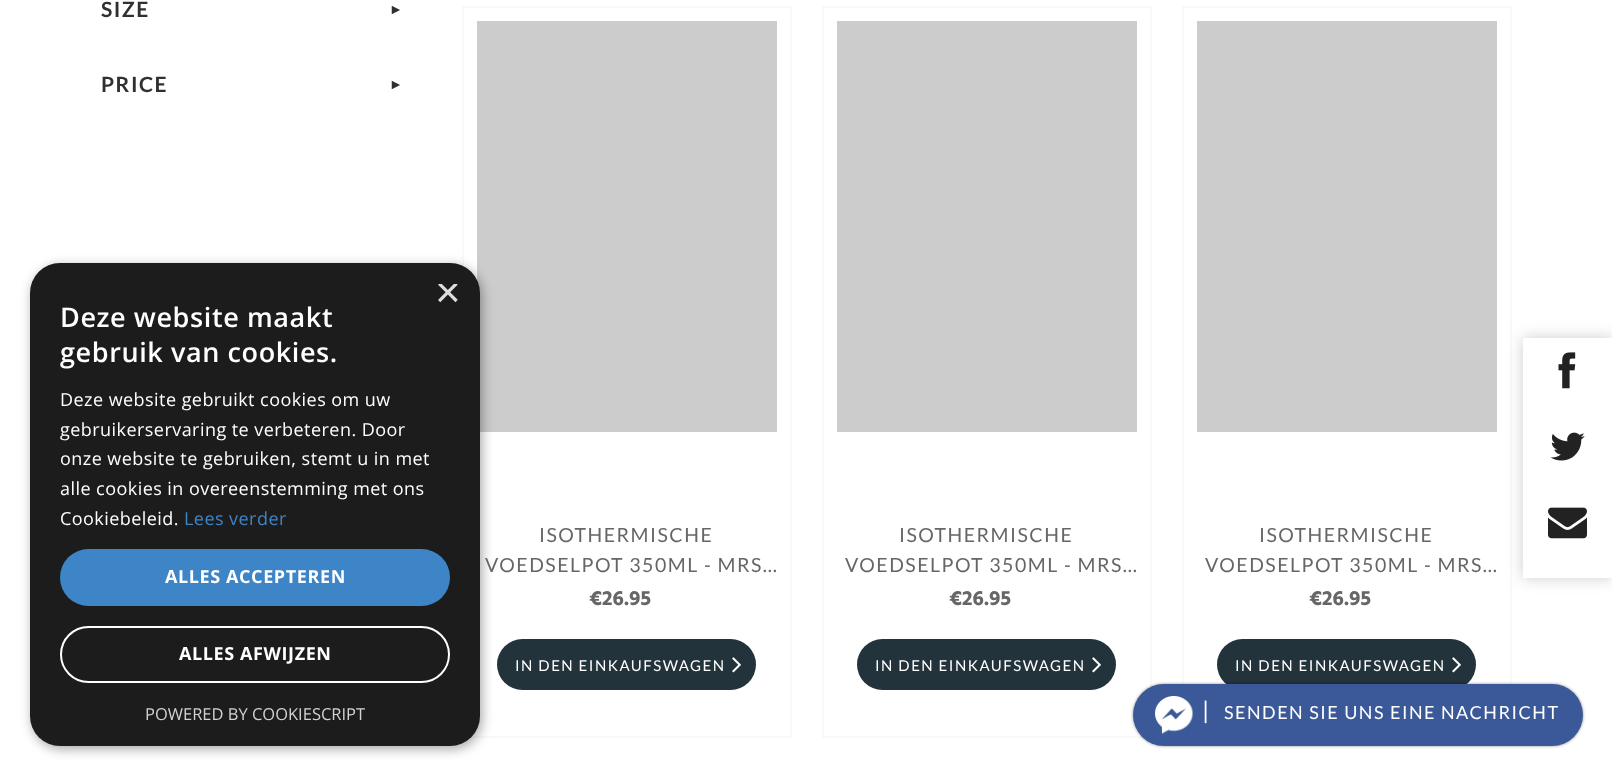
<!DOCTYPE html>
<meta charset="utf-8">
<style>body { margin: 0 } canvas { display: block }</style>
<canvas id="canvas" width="1612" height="775"></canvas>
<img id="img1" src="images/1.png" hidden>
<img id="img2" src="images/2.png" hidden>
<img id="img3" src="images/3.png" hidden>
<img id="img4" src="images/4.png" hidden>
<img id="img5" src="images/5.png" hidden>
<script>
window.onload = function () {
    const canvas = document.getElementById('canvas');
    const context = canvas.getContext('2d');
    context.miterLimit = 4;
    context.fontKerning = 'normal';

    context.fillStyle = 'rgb(255, 255, 255)';
    context.fillRect(0, 0, 1612, 775);
    context.strokeStyle = 'rgb(248, 249, 249)';
    context.lineWidth = 2;
    context.strokeRect(463, 7, 328, 730);
    context.fillStyle = 'rgb(204, 204, 204)';
    context.fillRect(477, 21, 300, 411);
    context.fillStyle = 'rgb(34, 51, 59)';
    context.beginPath();
    context.roundRect(497, 639, 259, 51, 25.5);
    context.fill();
    context.drawImage(document.getElementById('img1'), 732, 657, 9, 16);
    context.strokeRect(823, 7, 328, 730);
    context.fillStyle = 'rgb(204, 204, 204)';
    context.fillRect(837, 21, 300, 411);
    context.fillStyle = 'rgb(34, 51, 59)';
    context.beginPath();
    context.roundRect(857, 639, 259, 51, 25.5);
    context.fill();
    context.drawImage(document.getElementById('img1'), 1092, 657, 9, 16);
    context.strokeRect(1183, 7, 328, 730);
    context.fillStyle = 'rgb(204, 204, 204)';
    context.fillRect(1197, 21, 300, 411);
    context.fillStyle = 'rgb(34, 51, 59)';
    context.beginPath();
    context.roundRect(1217, 639, 259, 51, 25.5);
    context.fill();
    context.drawImage(document.getElementById('img1'), 1452, 657, 9, 16);
    context.fillStyle = 'rgb(204, 204, 204)';
    context.filter = 'blur(7.5px)';
    context.beginPath();
    context.rect(1523, 338, 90, 240);
    context.fill();
    context.filter = 'none';
    context.fillStyle = 'rgb(255, 255, 255)';
    context.fillRect(1523, 338, 89, 240);
    context.drawImage(document.getElementById('img2'), 1558, 352, 18, 37);
    context.drawImage(document.getElementById('img3'), 1550, 432, 35, 29);
    context.drawImage(document.getElementById('img4'), 1548, 507, 39, 32);
    context.fillStyle = 'rgba(0, 0, 0, 0.45)';
    context.filter = 'blur(1.5px)';
    context.beginPath();
    context.roundRect(1133, 684, 450, 62, 31);
    context.fill();
    context.filter = 'none';
    context.fillStyle = 'rgb(59, 89, 152)';
    context.beginPath();
    context.roundRect(1133, 684, 450, 62, 31);
    context.fill();
    context.drawImage(document.getElementById('img5'), 1155, 696, 38, 38);
    context.fillStyle = 'rgba(0, 0, 0, 0.35)';
    context.filter = 'blur(6px)';
    context.beginPath();
    context.roundRect(32, 266, 450, 483, 30);
    context.fill();
    context.filter = 'none';
    context.fillStyle = 'rgb(28, 28, 28)';
    context.beginPath();
    context.roundRect(30, 263, 450, 483, 30);
    context.fill();
    context.fillStyle = 'rgb(61, 133, 198)';
    context.beginPath();
    context.roundRect(60, 549, 390, 57, 28.5);
    context.fill();
    context.beginPath();
    context.roundRect(61, 627, 388, 55, 27.5);
    context.strokeStyle = 'rgb(255, 255, 255)';
    context.stroke();
    context.letterSpacing = '1.5px';
    context.font = 'bold 21px Lato';
    context.fillStyle = 'rgb(48, 48, 48)';
    context.fillText('SIZE', 101, 17);
    context.font = 'bold 14px Liberation Sans';
    context.fillText('►', 389, 14);
    context.font = 'bold 21px Lato';
    context.fillText('PRICE', 101, 92);
    context.font = 'bold 14px Liberation Sans';
    context.fillText('►', 389, 89);
    context.font = '19.5px Lato';
    context.fillStyle = 'rgb(102, 102, 102)';
    context.fillText('ISOTHERMISCHE', 539, 542);
    context.fillText('VOEDSELPOT 350ML - MRS…', 485, 572);
    context.letterSpacing = '0px';
    context.font = 'bold 21px Hind';
    context.fillText('€26.95', 589, 605);
    context.letterSpacing = '1.5px';
    context.font = '15px Lato';
    context.fillStyle = 'rgb(255, 255, 255)';
    context.fillText('IN DEN EINKAUFSWAGEN', 515, 671);
    context.font = '19.5px Lato';
    context.fillStyle = 'rgb(102, 102, 102)';
    context.fillText('ISOTHERMISCHE', 899, 542);
    context.fillText('VOEDSELPOT 350ML - MRS…', 845, 572);
    context.letterSpacing = '0px';
    context.font = 'bold 21px Hind';
    context.fillText('€26.95', 949, 605);
    context.letterSpacing = '1.5px';
    context.font = '15px Lato';
    context.fillStyle = 'rgb(255, 255, 255)';
    context.fillText('IN DEN EINKAUFSWAGEN', 875, 671);
    context.font = '19.5px Lato';
    context.fillStyle = 'rgb(102, 102, 102)';
    context.fillText('ISOTHERMISCHE', 1259, 542);
    context.fillText('VOEDSELPOT 350ML - MRS…', 1205, 572);
    context.letterSpacing = '0px';
    context.font = 'bold 21px Hind';
    context.fillText('€26.95', 1309, 605);
    context.letterSpacing = '1.5px';
    context.font = '15px Lato';
    context.fillStyle = 'rgb(255, 255, 255)';
    context.fillText('IN DEN EINKAUFSWAGEN', 1235, 671);
    context.font = '24px Lato';
    context.fillText('|', 1202, 719);
    context.font = '18px Lato';
    context.fillText('SENDEN SIE UNS EINE NACHRICHT', 1224, 719);
    context.save();
    context.beginPath();
    context.rect(435, 284, 23, 22);
    context.clip();
    context.letterSpacing = '0px';
    context.font = '44px Liberation Sans';
    context.fillStyle = 'rgb(221, 221, 221)';
    context.fillText('×', 435, 307);
    context.restore();
    context.letterSpacing = '0.6px';
    context.font = '600 27px Open Sans';
    context.fillText('Deze website maakt', 60, 327);
    context.fillText('gebruik van cookies.', 60, 362);
    context.letterSpacing = '0.45px';
    context.font = '18px Open Sans';
    context.fillText('Deze website gebruikt cookies om uw', 60, 406);
    context.fillText('gebruikerservaring te verbeteren. Door', 60, 436);
    context.fillText('onze website te gebruiken, stemt u in met', 60, 465);
    context.fillText('alle cookies in overeenstemming met ons', 60, 495);
    context.fillText('Cookiebeleid.', 60, 525);
    context.fillStyle = 'rgb(61, 133, 198)';
    context.fillText('Lees verder', 184, 525);
    context.letterSpacing = '0.6px';
    context.font = 'bold 18px Open Sans';
    context.fillStyle = 'rgb(255, 255, 255)';
    context.fillText('ALLES ACCEPTEREN', 165, 583);
    context.fillText('ALLES AFWIJZEN', 179, 660);
    context.letterSpacing = '0px';
    context.font = '16.5px Open Sans';
    context.fillStyle = 'rgb(210, 210, 210)';
    context.fillText('POWERED BY COOKIESCRIPT', 145, 720);
};
</script>
